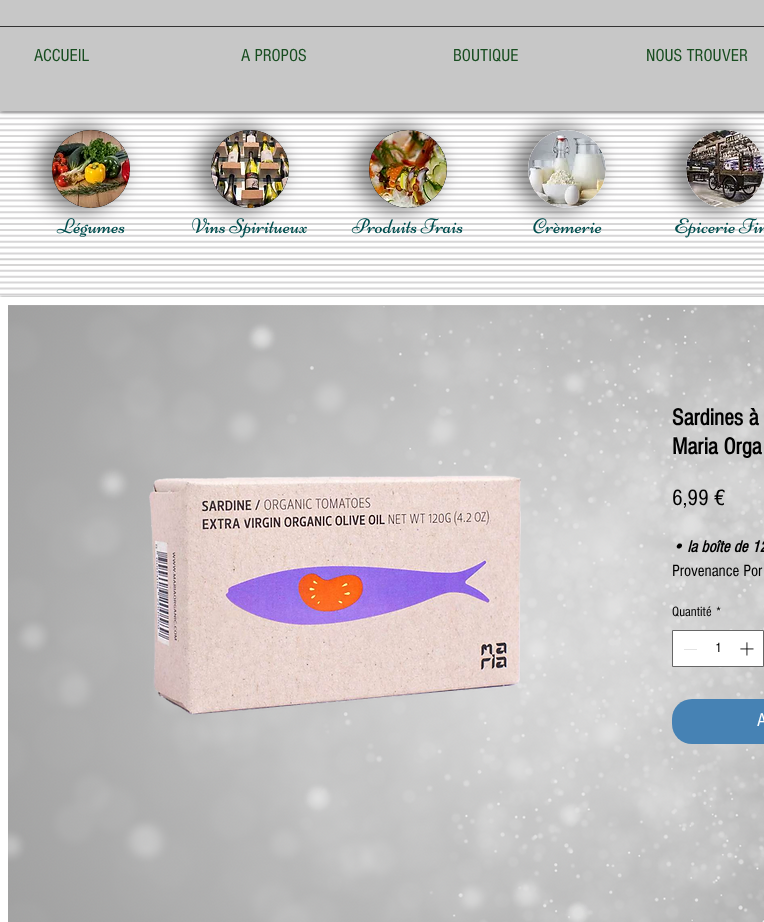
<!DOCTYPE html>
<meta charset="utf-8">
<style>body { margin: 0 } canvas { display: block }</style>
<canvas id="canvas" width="764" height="922"></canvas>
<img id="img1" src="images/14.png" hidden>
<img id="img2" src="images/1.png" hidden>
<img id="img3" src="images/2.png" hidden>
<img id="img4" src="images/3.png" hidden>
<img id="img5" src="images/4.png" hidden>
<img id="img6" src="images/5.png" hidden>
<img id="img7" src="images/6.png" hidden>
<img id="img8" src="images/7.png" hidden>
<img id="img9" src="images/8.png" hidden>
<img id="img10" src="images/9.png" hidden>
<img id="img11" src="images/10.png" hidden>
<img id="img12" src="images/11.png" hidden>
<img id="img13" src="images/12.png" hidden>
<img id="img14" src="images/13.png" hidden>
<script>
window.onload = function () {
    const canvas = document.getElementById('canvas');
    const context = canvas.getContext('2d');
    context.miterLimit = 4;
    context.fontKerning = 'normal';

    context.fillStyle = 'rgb(255, 255, 255)';
    context.fillRect(0, 0, 764, 922);
    context.drawImage(document.getElementById('img1'), 0, 111, 764, 185);
    context.fillStyle = 'rgba(0, 0, 0, 0.7)';
    context.filter = 'blur(2.5px)';
    context.beginPath();
    context.rect(0, 0, 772, 111);
    context.fill();
    context.filter = 'none';
    context.fillStyle = 'rgba(0, 0, 0, 0.44)';
    context.filter = 'blur(9.5px)';
    context.beginPath();
    context.roundRect(38, 126, 86, 86, 43);
    context.fill();
    context.filter = 'none';
    context.filter = 'blur(9.5px)';
    context.beginPath();
    context.roundRect(197, 126, 86, 86, 43);
    context.fill();
    context.filter = 'none';
    context.filter = 'blur(9.5px)';
    context.beginPath();
    context.roundRect(355, 126, 86, 86, 43);
    context.fill();
    context.filter = 'none';
    context.filter = 'blur(9.5px)';
    context.beginPath();
    context.roundRect(514, 126, 86, 86, 43);
    context.fill();
    context.filter = 'none';
    context.filter = 'blur(9.5px)';
    context.beginPath();
    context.roundRect(672, 126, 86, 86, 43);
    context.fill();
    context.filter = 'none';
    context.fillStyle = 'rgb(199, 199, 199)';
    context.fillRect(0, 0, 764, 111);
    context.fillStyle = 'rgb(51, 51, 51)';
    context.fillRect(0, 26, 764, 1);
    context.fillStyle = 'rgb(0, 0, 0)';
    context.beginPath();
    context.arc(91, 169, 39, 0, 2 * Math.PI);
    context.fill();
    context.drawImage(document.getElementById('img2'), 52, 130, 78, 78);
    context.beginPath();
    context.arc(250, 169, 39, 0, 2 * Math.PI);
    context.fill();
    context.drawImage(document.getElementById('img3'), 211, 130, 78, 78);
    context.beginPath();
    context.arc(408, 169, 39, 0, 2 * Math.PI);
    context.fill();
    context.drawImage(document.getElementById('img4'), 369, 130, 78, 78);
    context.fillStyle = 'rgb(255, 255, 255)';
    context.beginPath();
    context.arc(567, 169, 39, 0, 2 * Math.PI);
    context.fill();
    context.drawImage(document.getElementById('img5'), 528, 130, 78, 78);
    context.beginPath();
    context.arc(725, 169, 39, 0, 2 * Math.PI);
    context.fill();
    context.drawImage(document.getElementById('img6'), 686, 130, 78, 78);
    context.drawImage(document.getElementById('img7'), 56, 218, 69, 19);
    context.drawImage(document.getElementById('img8'), 192, 218, 115, 20);
    context.drawImage(document.getElementById('img9'), 351, 218, 112, 16);
    context.drawImage(document.getElementById('img10'), 533, 218, 69, 16);
    context.drawImage(document.getElementById('img11'), 675, 218, 89, 20);
    context.fillStyle = 'rgba(0, 0, 0, 0.5)';
    context.filter = 'blur(1.5px)';
    context.beginPath();
    context.rect(0, 297, 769, 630);
    context.fill();
    context.filter = 'none';
    context.fillStyle = 'rgb(255, 255, 255)';
    context.fillRect(0, 297, 764, 625);
    context.drawImage(document.getElementById('img12'), 8, 305, 756, 617);
    context.drawImage(document.getElementById('img13'), 149, 475, 372, 240);
    context.beginPath();
    context.rect(672.5, 630.5, 91, 36);
    context.fill();
    context.strokeStyle = 'rgb(102, 102, 102)';
    context.stroke();
    context.fillStyle = 'rgb(227, 227, 227)';
    context.fillRect(684, 649, 13, 1);
    context.drawImage(document.getElementById('img14'), 740, 642, 14, 14);
    context.fillStyle = 'rgb(70, 130, 180)';
    context.beginPath();
    context.roundRect(672, 699, 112, 45, 20);
    context.fill();
    context.font = '18px "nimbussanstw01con"';
    context.fillStyle = 'rgb(24, 77, 32)';
    context.fillText('ACCUEIL', 34, 61);
    context.fillText('A PROPOS', 241, 61);
    context.fillText('BOUTIQUE', 453, 61);
    context.fillText('NOUS TROUVER', 646, 61);
    context.font = 'bold 24px "nimbussanstw01con"';
    context.fillStyle = 'rgb(0, 0, 0)';
    context.fillText('Sardines à', 672, 425);
    context.fillText('Maria Orga', 672, 454);
    context.font = '23px "nimbussanstw01con"';
    context.fillText('6,99 €', 672, 505);
    context.font = 'italic bold 17px "nimbussanstw01con"';
    context.fillText('• la boîte de 12', 672, 552);
    context.font = '17px "nimbussanstw01con"';
    context.fillText('Provenance Por', 672, 576);
    context.font = '14px "nimbussanstw01con"';
    context.fillText('Quantité', 672, 616);
    context.fillText('*', 716, 616);
    context.fillText('1', 715, 652);
    context.font = '19px "nimbussanstw01con"';
    context.fillStyle = 'rgb(255, 255, 255)';
    context.fillText('A', 757, 726);
};
</script>
